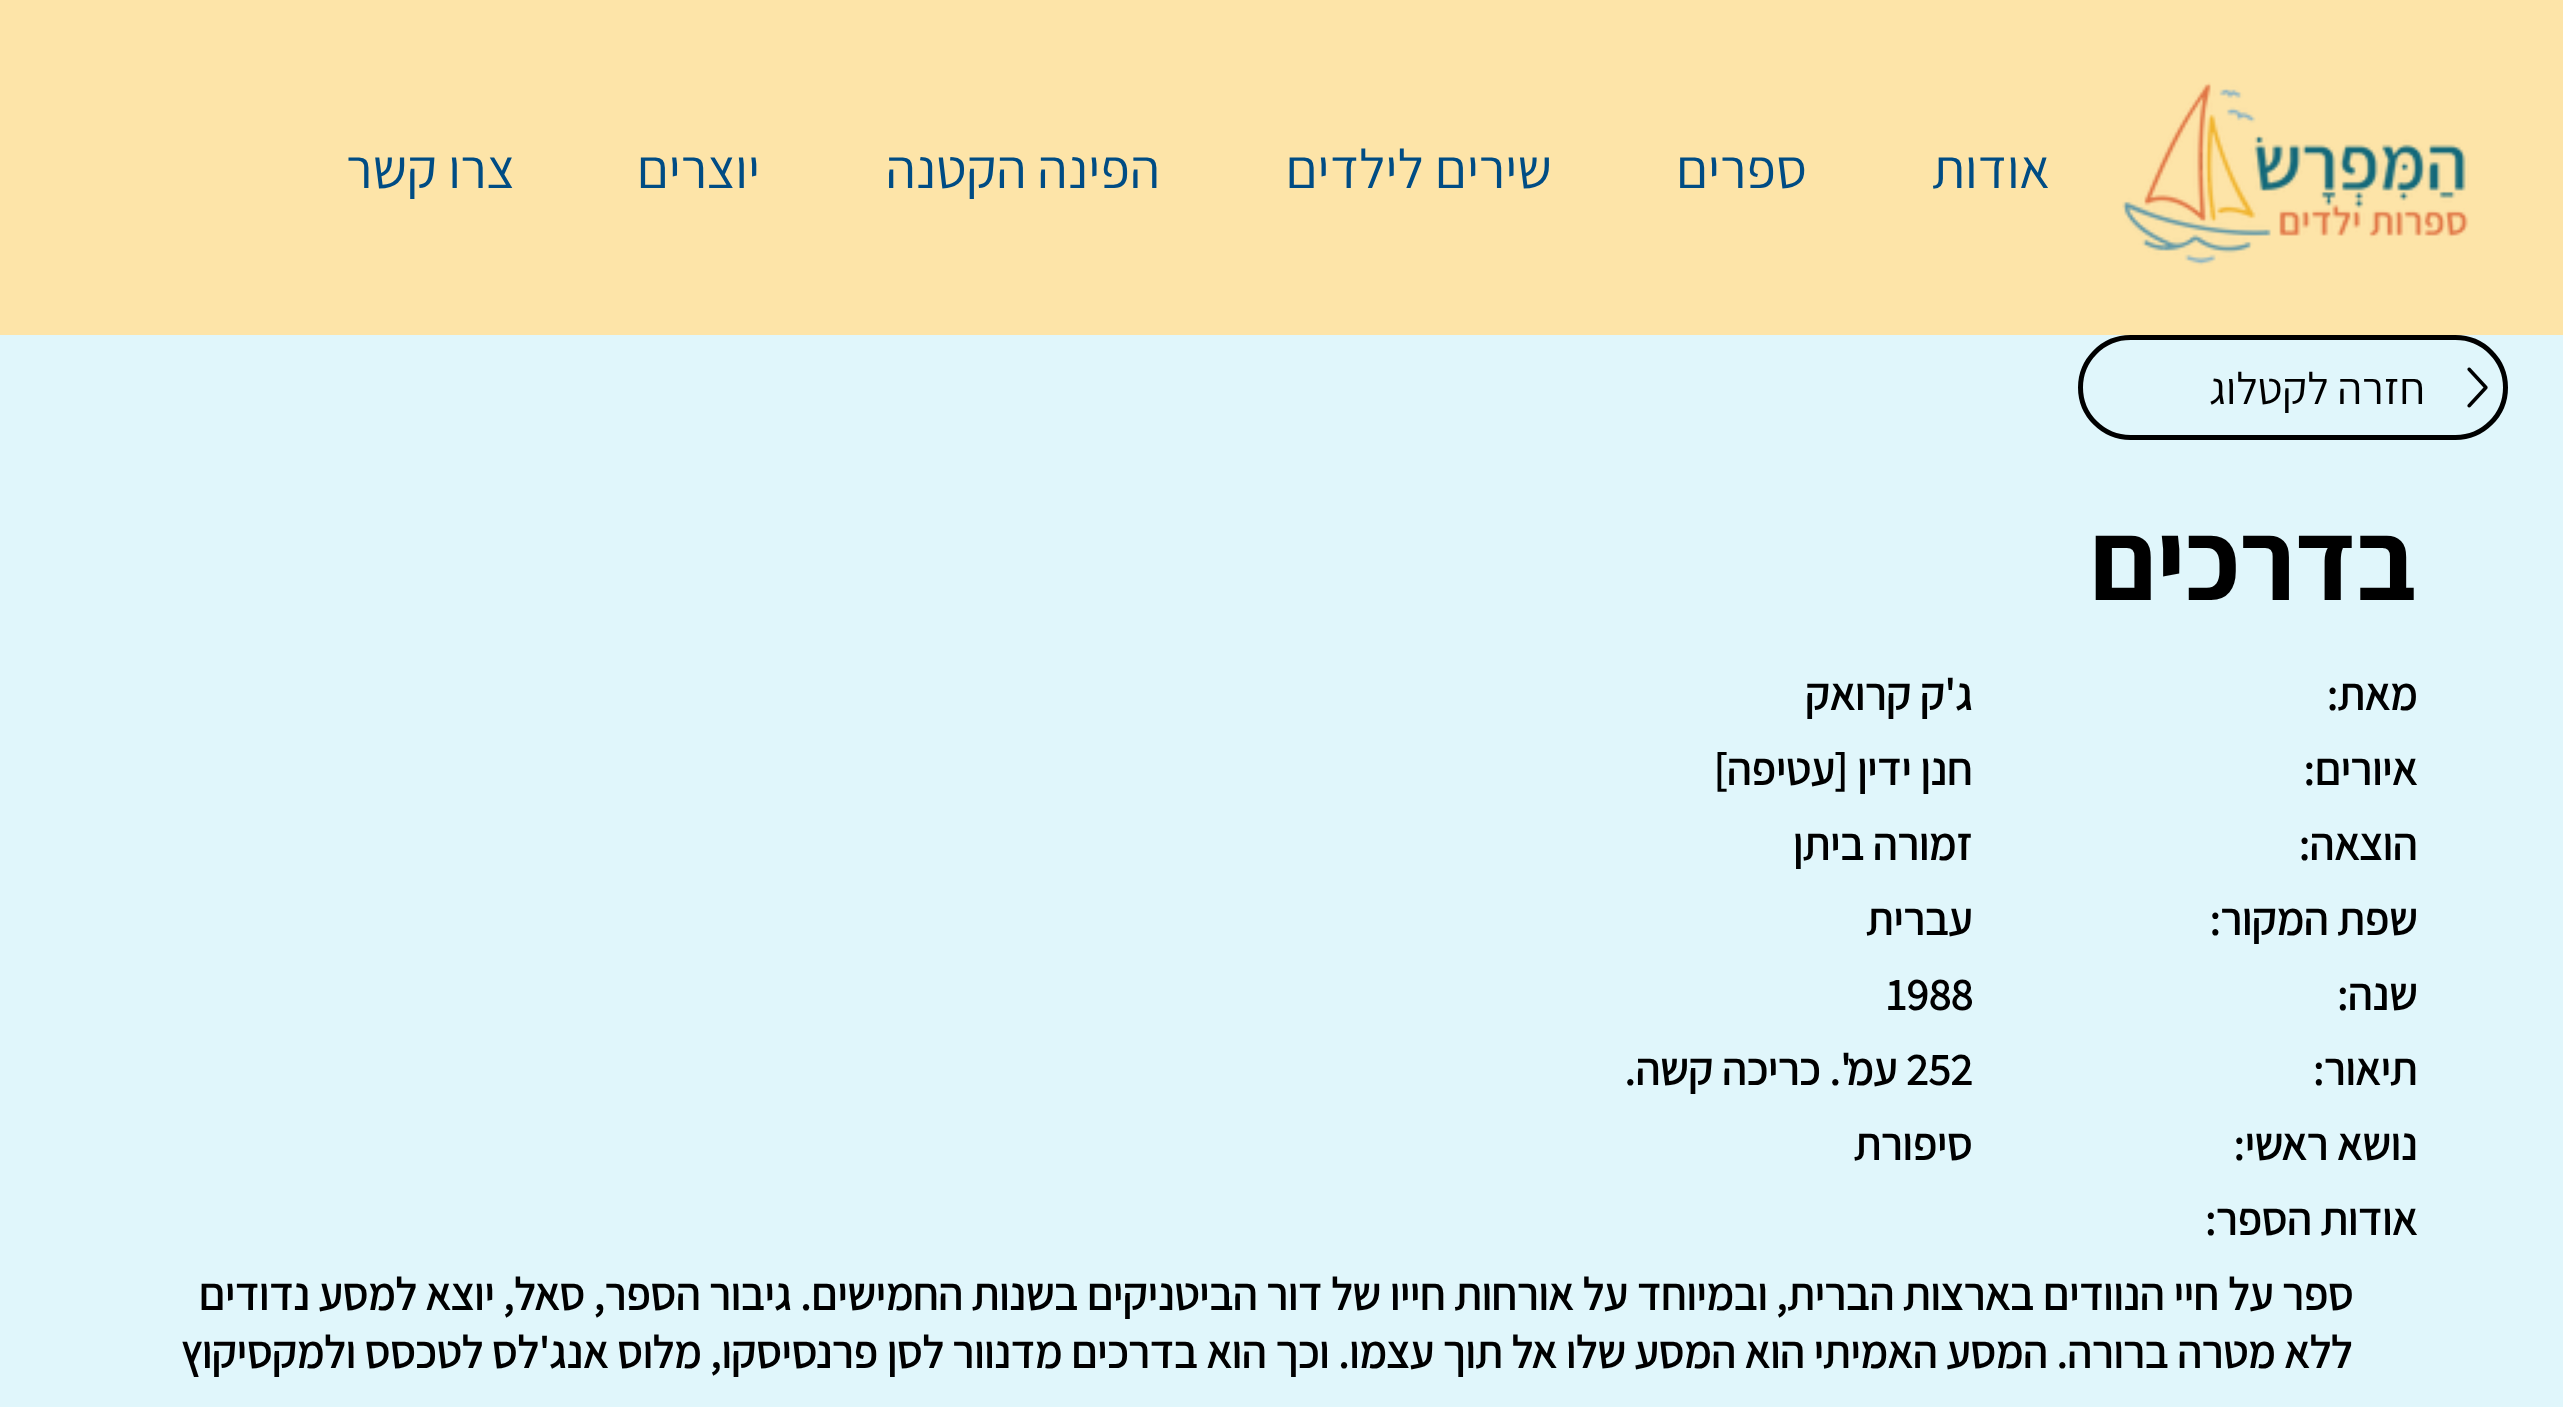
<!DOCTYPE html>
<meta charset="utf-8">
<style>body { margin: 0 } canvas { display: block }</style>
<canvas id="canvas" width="2563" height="1407"></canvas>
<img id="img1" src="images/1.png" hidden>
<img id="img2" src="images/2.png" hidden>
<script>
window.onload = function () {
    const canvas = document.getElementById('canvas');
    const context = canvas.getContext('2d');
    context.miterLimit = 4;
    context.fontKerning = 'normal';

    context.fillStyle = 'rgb(224, 246, 251)';
    context.fillRect(0, 0, 2563, 1407);
    context.fillStyle = 'rgb(253, 228, 168)';
    context.fillRect(0, 0, 2563, 335);
    context.drawImage(document.getElementById('img1'), 2122, 82, 347, 184);
    context.beginPath();
    context.roundRect(2080.5, 337.5, 425, 100, 50);
    context.strokeStyle = 'rgb(0, 0, 0)';
    context.lineWidth = 5;
    context.stroke();
    context.drawImage(document.getElementById('img2'), 2467, 367, 21, 41);
    context.direction = 'rtl';
    context.font = '55px Assistant';
    context.fillStyle = 'rgb(0, 76, 132)';
    context.fillText('אודות', 2050, 188);
    context.fillText('ספרים', 1807, 188);
    context.fillText('שירים לילדים', 1552, 188);
    context.fillText('הפינה הקטנה', 1160, 188);
    context.fillText('יוצרים', 760, 188);
    context.fillText('צרו קשר', 515, 188);
    context.font = '45px Assistant';
    context.fillStyle = 'rgb(0, 0, 0)';
    context.fillText('חזרה לקטלוג', 2425, 404);
    context.font = 'bold 112.5px Assistant';
    context.fillText('בדרכים', 2417, 600);
    context.font = 'bold 45px "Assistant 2"';
    context.fillText('מאת:', 2417, 710);
    context.fillText('ג\'ק קרואק', 1972, 710);
    context.fillText('איורים:', 2417, 785);
    context.fillText('חנן ידין [עטיפה]', 1972, 785);
    context.fillText('הוצאה:', 2417, 860);
    context.fillText('זמורה ביתן', 1972, 860);
    context.fillText('שפת המקור:', 2417, 935);
    context.fillText('עברית', 1972, 935);
    context.fillText('שנה:', 2417, 1010);
    context.direction = 'ltr';
    context.fillText('1988', 1886, 1010);
    context.direction = 'rtl';
    context.fillText('תיאור:', 2417, 1085);
    context.direction = 'ltr';
    context.fillText('252', 1906, 1085);
    context.direction = 'rtl';
    context.fillText('עמ\'. כריכה קשה.', 1897, 1085);
    context.fillText('נושא ראשי:', 2417, 1160);
    context.fillText('סיפורת', 1972, 1160);
    context.fillText('אודות הספר:', 2417, 1235);
    context.fillText('ספר על חיי הנוודים בארצות הברית, ובמיוחד על אורחות חייו של דור הביטניקים בשנות החמישים. גיבור הספר, סאל, יוצא למסע נדודים', 2353, 1310);
    context.fillText('ללא מטרה ברורה. המסע האמיתי הוא המסע שלו אל תוך עצמו. וכך הוא בדרכים מדנוור לסן פרנסיסקו, מלוס אנג\'לס לטכסס ולמקסיקוץ', 2352, 1368);
};
</script>
